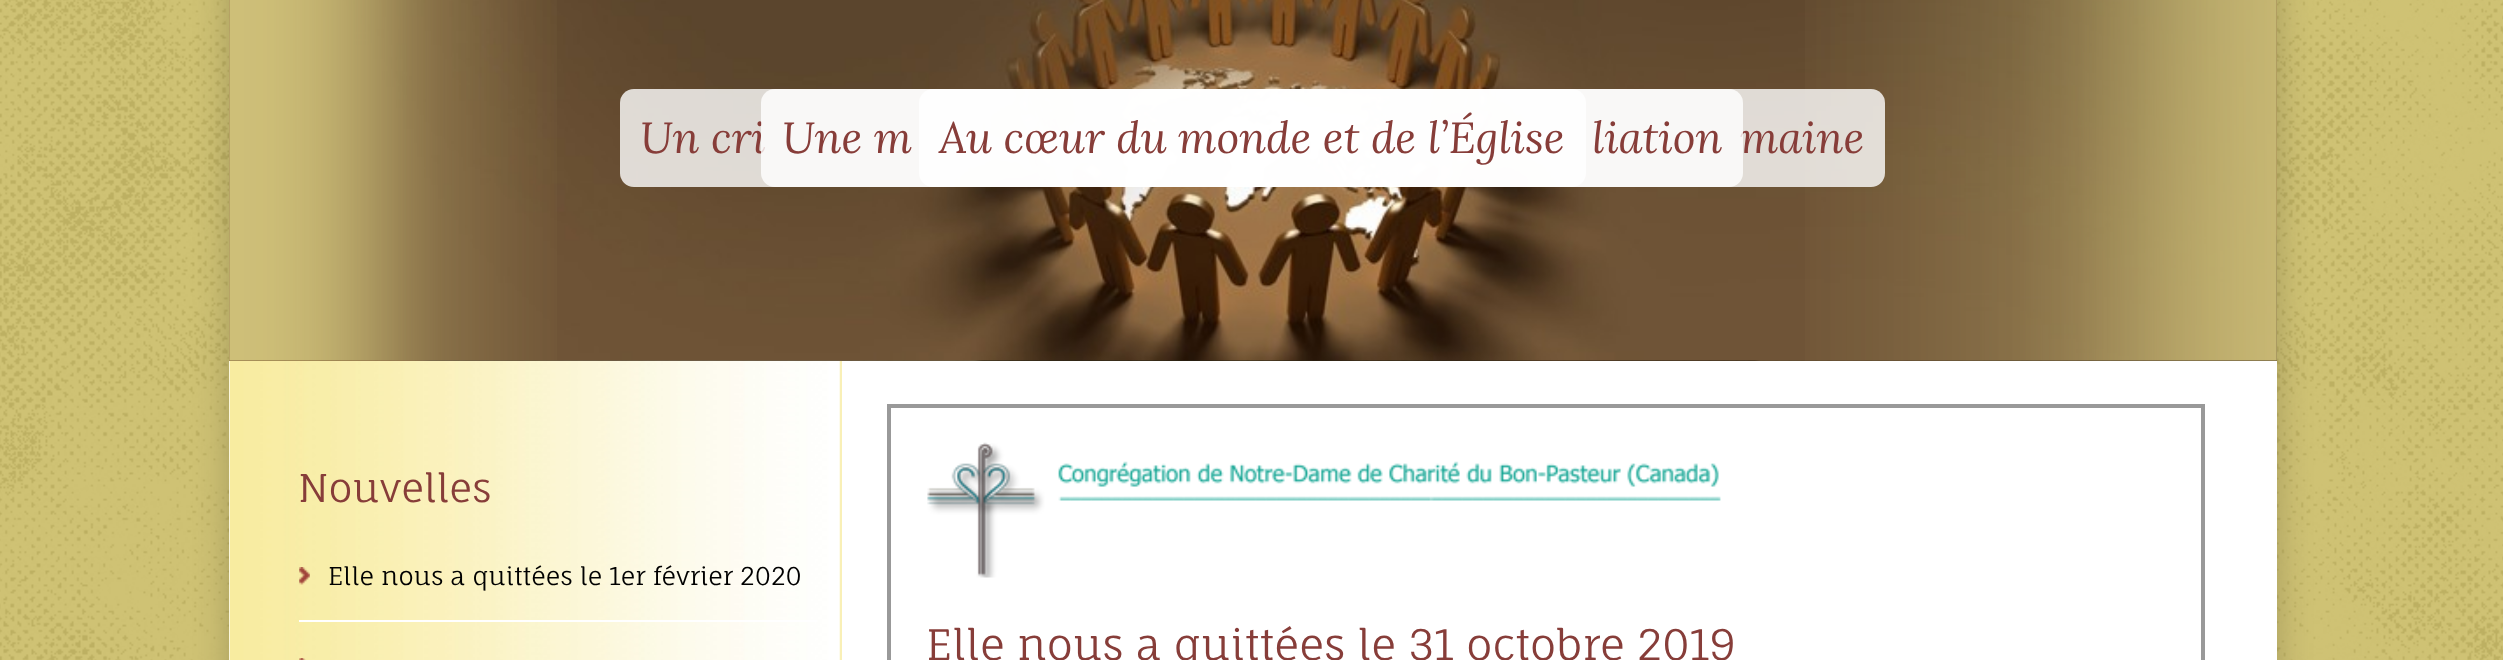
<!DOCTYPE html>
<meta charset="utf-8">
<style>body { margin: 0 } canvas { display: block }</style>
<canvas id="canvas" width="2503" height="660"></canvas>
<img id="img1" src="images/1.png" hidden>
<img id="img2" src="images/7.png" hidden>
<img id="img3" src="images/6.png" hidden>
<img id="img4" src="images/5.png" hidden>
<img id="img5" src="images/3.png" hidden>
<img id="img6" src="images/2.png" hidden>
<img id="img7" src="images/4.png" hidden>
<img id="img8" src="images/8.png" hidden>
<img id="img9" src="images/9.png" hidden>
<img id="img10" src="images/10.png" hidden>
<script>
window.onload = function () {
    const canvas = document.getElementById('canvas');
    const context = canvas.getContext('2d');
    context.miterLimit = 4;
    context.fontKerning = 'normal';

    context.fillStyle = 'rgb(255, 255, 255)';
    context.fillRect(0, 0, 2503, 660);
    context.drawImage(document.getElementById('img1'), 0, 0, 2503, 660);
    context.fillStyle = 'rgba(0, 0, 0, 0.2)';
    context.filter = 'blur(17.5px)';
    context.beginPath();
    context.roundRect(229, -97, 2048, 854, 44);
    context.fill();
    context.filter = 'none';
    context.fillStyle = 'rgb(255, 255, 255)';
    context.fillRect(229, 361, 2048, 299);
    context.drawImage(document.getElementById('img2'), 229, 360, 613, 300);
    context.drawImage(document.getElementById('img3'), 229, 0, 2048, 361);
    context.drawImage(document.getElementById('img4'), 229, 0, 2048, 361);
    context.drawImage(document.getElementById('img5'), 229, 0, 2048, 361);
    context.drawImage(document.getElementById('img6'), 229, 0, 328, 361);
    context.drawImage(document.getElementById('img7'), 1805, 0, 472, 361);
    context.fillStyle = 'rgba(255, 255, 255, 0.8)';
    context.beginPath();
    context.roundRect(620, 89, 1265, 98, 14);
    context.fill();
    context.fillStyle = 'rgb(255, 255, 255)';
    context.fillRect(299, 620, 518, 2);
    context.drawImage(document.getElementById('img8'), 299, 567, 11, 18);
    context.drawImage(document.getElementById('img9'), 299, 658, 7, 2);
    context.strokeStyle = 'rgb(153, 153, 153)';
    context.lineWidth = 4;
    context.strokeRect(889, 406, 1314, 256);
    context.drawImage(document.getElementById('img10'), 927, 442, 794, 136);
    context.font = 'italic 43.75px Lora';
    context.fillStyle = 'rgb(135, 61, 57)';
    context.fillText('Un cri', 640, 153);
    context.fillText('maine', 1740, 153);
    context.fillStyle = 'rgba(255, 255, 255, 0.8)';
    context.beginPath();
    context.roundRect(761, 89, 982, 98, 14);
    context.fill();
    context.beginPath();
    context.roundRect(919, 89, 667, 98, 14);
    context.fill();
    context.fillStyle = 'rgb(135, 61, 57)';
    context.fillText('Au cœur du monde et de l’Église', 939, 153);
    context.fillText('liation', 1592, 153);
    context.fillText('Une m', 782, 153);
    context.font = '38.5px Fauna One';
    context.fillText('Nouvelles', 298, 502);
    context.font = '24.5px Fauna One';
    context.fillStyle = 'rgb(0, 0, 0)';
    context.fillText('Elle nous a quittées le 1er février 2020', 328, 585);
    context.font = '42px Fauna One';
    context.fillStyle = 'rgb(135, 61, 57)';
    context.fillText('Elle nous a quittées le 31 octobre 2019', 926, 660);
};
</script>
